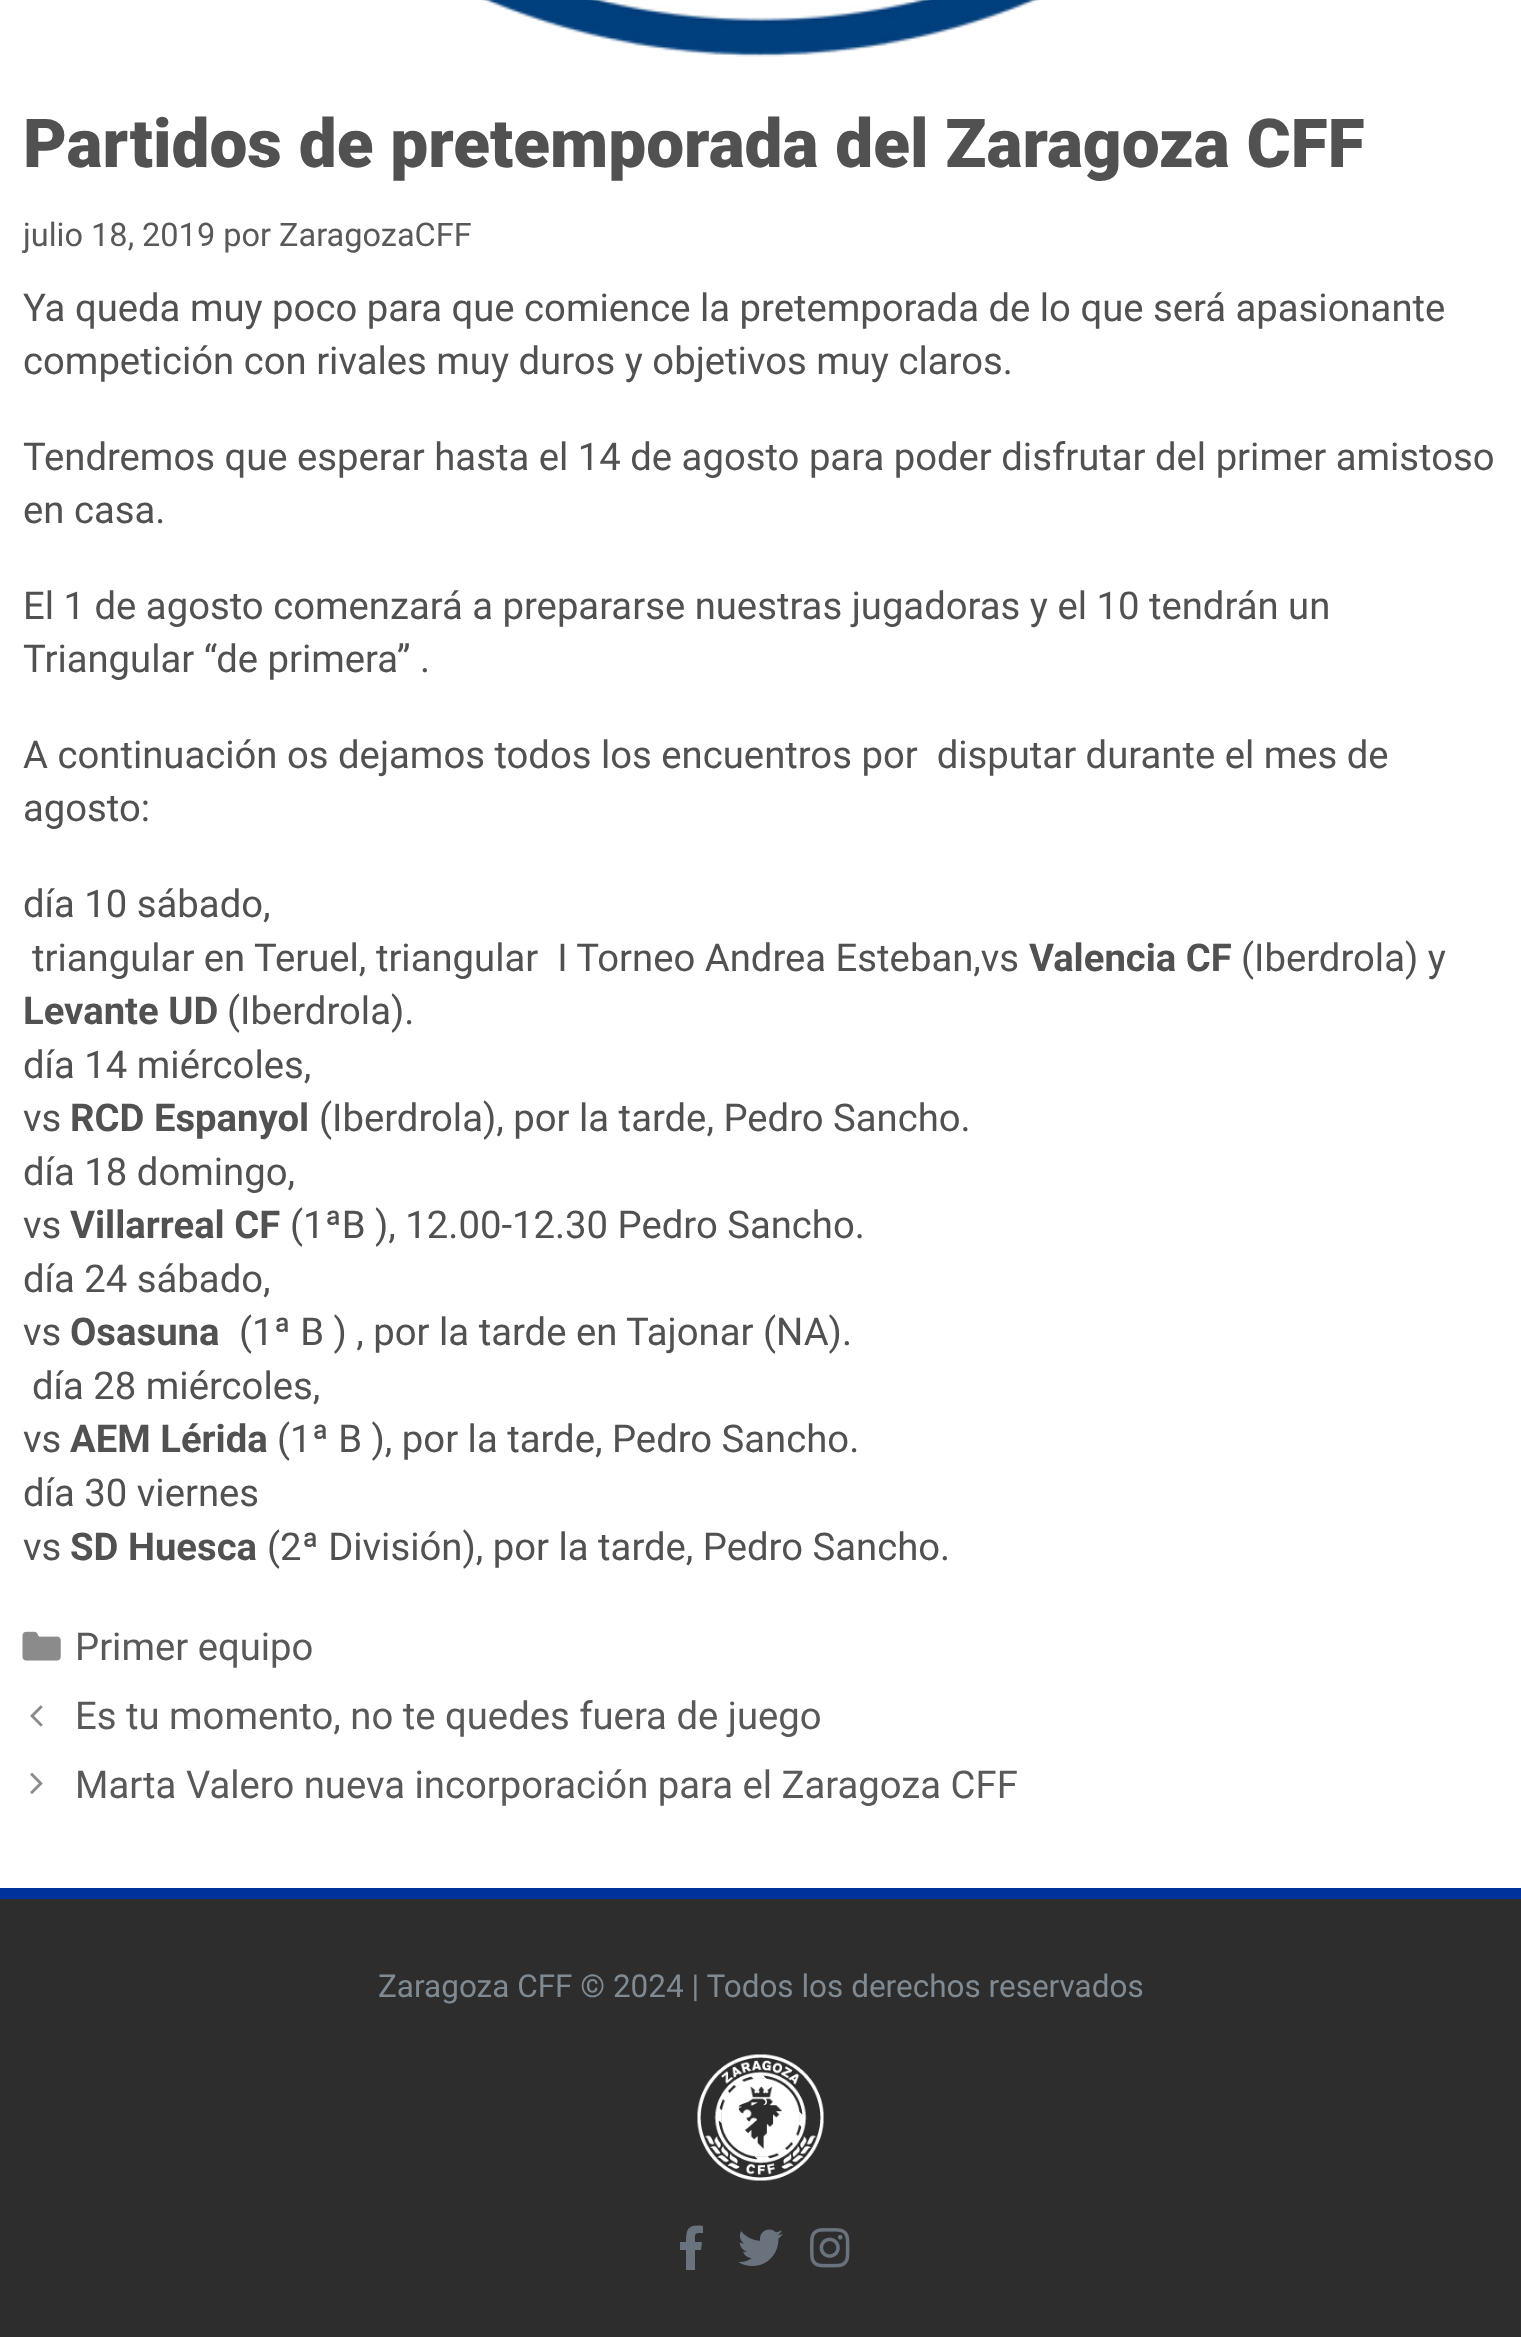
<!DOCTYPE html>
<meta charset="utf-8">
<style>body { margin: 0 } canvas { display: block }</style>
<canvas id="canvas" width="1521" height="2337"></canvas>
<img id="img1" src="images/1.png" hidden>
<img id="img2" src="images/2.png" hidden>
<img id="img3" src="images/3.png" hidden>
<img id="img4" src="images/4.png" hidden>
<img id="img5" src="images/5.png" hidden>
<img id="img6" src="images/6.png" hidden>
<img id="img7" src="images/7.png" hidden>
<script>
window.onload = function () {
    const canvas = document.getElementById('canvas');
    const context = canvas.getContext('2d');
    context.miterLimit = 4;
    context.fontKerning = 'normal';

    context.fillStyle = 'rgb(255, 255, 255)';
    context.fillRect(0, 0, 1521, 2337);
    context.drawImage(document.getElementById('img1'), 481, 0, 559, 57);
    context.drawImage(document.getElementById('img2'), 22, 1631, 39, 30);
    context.drawImage(document.getElementById('img3'), 30, 1705, 13, 22);
    context.drawImage(document.getElementById('img4'), 30, 1772, 13, 22);
    context.fillStyle = 'rgb(0, 50, 155)';
    context.fillRect(0, 1888, 1521, 11);
    context.fillStyle = 'rgb(45, 45, 45)';
    context.fillRect(0, 1899, 1521, 438);
    context.drawImage(document.getElementById('img5'), 697, 2054, 127, 127);
    context.fillStyle = 'rgb(105, 114, 125)';
    context.beginPath();
    context.moveTo(686, 2270);
    context.lineTo(686, 2250);
    context.lineTo(680, 2250);
    context.lineTo(680, 2242);
    context.lineTo(686, 2242);
    context.bezierCurveTo(686, 2229, 688, 2224, 703, 2226);
    context.lineTo(703, 2233);
    context.bezierCurveTo(694, 2233, 695, 2233, 695, 2242);
    context.lineTo(702, 2242);
    context.lineTo(701, 2250);
    context.lineTo(695, 2250);
    context.lineTo(695, 2270);
    context.fill();
    context.drawImage(document.getElementById('img6'), 738, 2229, 45, 37);
    context.drawImage(document.getElementById('img7'), 810, 2228, 40, 40);
    context.font = '900 67.5px Roboto';
    context.fillStyle = 'rgb(81, 81, 81)';
    context.fillText('Partidos de pretemporada del Zaragoza CFF', 23, 167);
    context.font = '32.5px Roboto';
    context.fillStyle = 'rgb(89, 89, 89)';
    context.fillText('julio 18, 2019 por ZaragozaCFF', 23, 246);
    context.font = '38.25px Roboto';
    context.fillStyle = 'rgb(81, 81, 81)';
    context.fillText('Ya queda muy poco para que comience la pretemporada de lo que será apasionante', 23, 321);
    context.fillText('competición con rivales muy duros y objetivos muy claros.', 23, 374);
    context.fillText('Tendremos que esperar hasta el 14 de agosto para poder disfrutar del primer amistoso', 23, 470);
    context.fillText('en casa.', 23, 523);
    context.fillText('El 1 de agosto comenzará a prepararse nuestras jugadoras y el 10 tendrán un', 23, 619);
    context.fillText('Triangular “de primera” .', 23, 672);
    context.fillText('A continuación os dejamos todos los encuentros por  disputar durante el mes de', 23, 768);
    context.fillText('agosto:', 23, 821);
    context.fillText('día 10 sábado,', 23, 917);
    context.fillText('triangular en Teruel, triangular  I Torneo Andrea Esteban,vs', 32, 971);
    context.font = 'bold 38.25px Roboto';
    context.fillText('Valencia CF', 1029, 971);
    context.font = '38.25px Roboto';
    context.fillText('(Iberdrola) y', 1241, 971);
    context.font = 'bold 38.25px Roboto';
    context.fillText('Levante UD', 23, 1024);
    context.font = '38.25px Roboto';
    context.fillText('(Iberdrola).', 227, 1024);
    context.fillText('día 14 miércoles,', 23, 1078);
    context.fillText('vs', 23, 1131);
    context.font = 'bold 38.25px Roboto';
    context.fillText('RCD Espanyol', 70, 1131);
    context.font = '38.25px Roboto';
    context.fillText('(Iberdrola), por la tarde, Pedro Sancho.', 319, 1131);
    context.fillText('día 18 domingo,', 23, 1185);
    context.fillText('vs', 23, 1238);
    context.font = 'bold 38.25px Roboto';
    context.fillText('Villarreal CF', 70, 1238);
    context.font = '38.25px Roboto';
    context.fillText('(1ªB ), 12.00-12.30 Pedro Sancho.', 290, 1238);
    context.fillText('día 24 sábado,', 23, 1292);
    context.fillText('vs', 23, 1345);
    context.font = 'bold 38.25px Roboto';
    context.fillText('Osasuna', 70, 1345);
    context.font = '38.25px Roboto';
    context.fillText('(1ª B ) , por la tarde en Tajonar (NA).', 239, 1345);
    context.fillText('día 28 miércoles,', 32, 1399);
    context.fillText('vs', 23, 1452);
    context.font = 'bold 38.25px Roboto';
    context.fillText('AEM Lérida', 70, 1452);
    context.font = '38.25px Roboto';
    context.fillText('(1ª B ), por la tarde, Pedro Sancho.', 277, 1452);
    context.fillText('día 30 viernes', 23, 1506);
    context.fillText('vs', 23, 1560);
    context.font = 'bold 38.25px Roboto';
    context.fillText('SD Huesca', 70, 1560);
    context.font = '38.25px Roboto';
    context.fillText('(2ª División), por la tarde, Pedro Sancho.', 267, 1560);
    context.fillStyle = 'rgb(89, 89, 89)';
    context.fillText('Primer equipo', 75, 1660);
    context.fillText('Es tu momento, no te quedes fuera de juego', 75, 1729);
    context.fillText('Marta Valero nueva incorporación para el Zaragoza CFF', 75, 1798);
    context.font = '31.5px Roboto';
    context.fillStyle = 'rgb(127, 138, 146)';
    context.fillText('Zaragoza CFF © 2024 | Todos los derechos reservados', 378, 1997);
};
</script>
